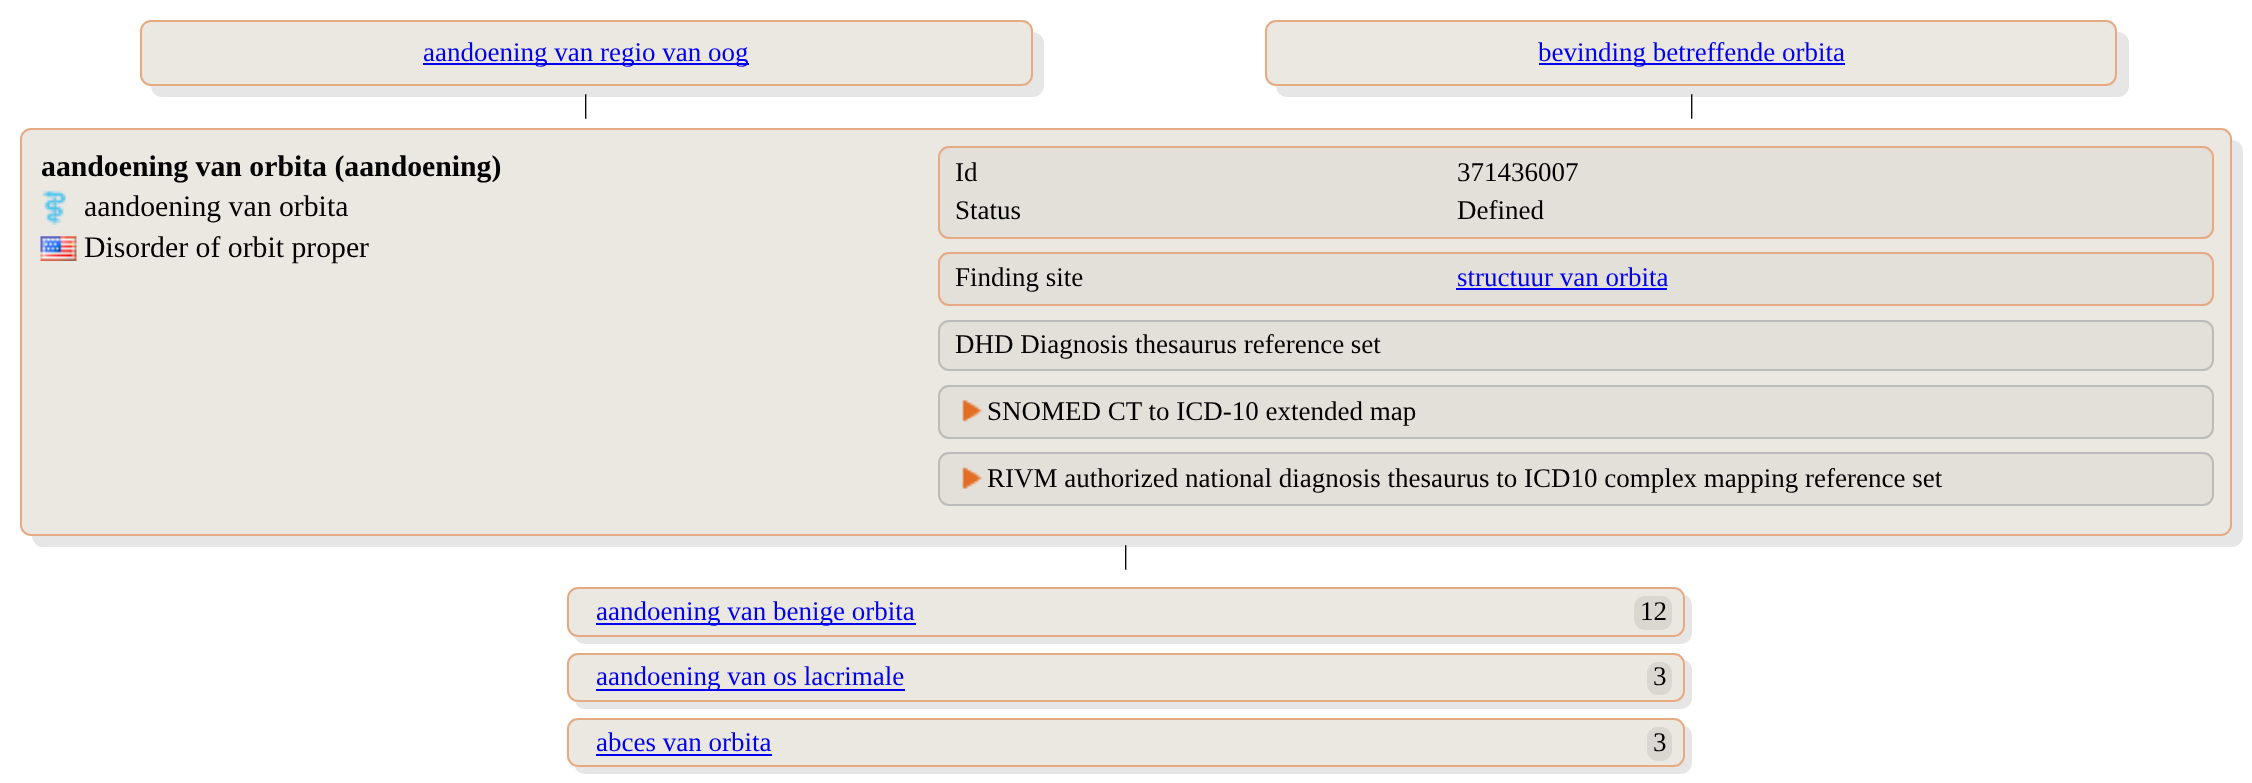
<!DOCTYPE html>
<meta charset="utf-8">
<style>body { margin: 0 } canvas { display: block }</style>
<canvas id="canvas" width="2252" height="783"></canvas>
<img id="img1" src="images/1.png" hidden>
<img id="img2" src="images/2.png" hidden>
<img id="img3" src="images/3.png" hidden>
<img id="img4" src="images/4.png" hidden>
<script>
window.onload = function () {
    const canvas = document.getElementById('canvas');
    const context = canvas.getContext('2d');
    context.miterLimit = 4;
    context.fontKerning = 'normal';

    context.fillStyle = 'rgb(255, 255, 255)';
    context.fillRect(0, 0, 2252, 783);
    context.fillStyle = 'rgb(230, 230, 230)';
    context.beginPath();
    context.moveTo(151, 86);
    context.bezierCurveTo(151, 92, 156, 97, 162, 97);
    context.lineTo(1033, 97);
    context.bezierCurveTo(1039, 97, 1044, 92, 1044, 86);
    context.lineTo(1044, 43);
    context.bezierCurveTo(1044, 37, 1039, 32, 1033, 32);
    context.lineTo(1033, 74);
    context.bezierCurveTo(1033, 80, 1028, 86, 1022, 86);
    context.closePath();
    context.fill();
    context.fillStyle = 'rgb(235, 231, 225)';
    context.beginPath();
    context.roundRect(141, 21, 891, 64, 10);
    context.fill();
    context.strokeStyle = 'rgb(230, 170, 131)';
    context.lineWidth = 2;
    context.stroke();
    context.fillStyle = 'rgb(0, 0, 238)';
    context.fillRect(423, 63, 326, 2);
    context.fillStyle = 'rgb(230, 230, 230)';
    context.beginPath();
    context.moveTo(1276, 86);
    context.bezierCurveTo(1276, 92, 1281, 97, 1287, 97);
    context.lineTo(2118, 97);
    context.bezierCurveTo(2124, 97, 2129, 92, 2129, 86);
    context.lineTo(2129, 43);
    context.bezierCurveTo(2129, 37, 2124, 32, 2118, 32);
    context.lineTo(2117, 32);
    context.lineTo(2117, 74);
    context.bezierCurveTo(2117, 80, 2112, 86, 2106, 86);
    context.closePath();
    context.fill();
    context.fillStyle = 'rgb(235, 231, 225)';
    context.beginPath();
    context.roundRect(1266, 21, 850, 64, 10);
    context.fill();
    context.stroke();
    context.fillStyle = 'rgb(0, 0, 238)';
    context.fillRect(1539, 63, 306, 2);
    context.fillStyle = 'rgb(230, 230, 230)';
    context.beginPath();
    context.moveTo(32, 536);
    context.bezierCurveTo(32, 542, 37, 547, 43, 547);
    context.lineTo(2232, 547);
    context.bezierCurveTo(2238, 547, 2243, 542, 2243, 536);
    context.lineTo(2243, 151);
    context.bezierCurveTo(2243, 145, 2238, 140, 2232, 140);
    context.lineTo(2232, 524);
    context.bezierCurveTo(2232, 530, 2227, 536, 2221, 536);
    context.closePath();
    context.fill();
    context.fillStyle = 'rgb(235, 231, 225)';
    context.beginPath();
    context.roundRect(21, 129, 2210, 406, 10);
    context.fill();
    context.stroke();
    context.drawImage(document.getElementById('img1'), 42, 190, 24, 35);
    context.drawImage(document.getElementById('img2'), 40, 236, 37, 25);
    context.fillStyle = 'rgb(227, 223, 217)';
    context.beginPath();
    context.roundRect(939, 147, 1274, 91, 10);
    context.fill();
    context.stroke();
    context.beginPath();
    context.roundRect(939, 253, 1274, 52, 10);
    context.fill();
    context.stroke();
    context.fillStyle = 'rgb(0, 0, 238)';
    context.fillRect(1456, 288, 211, 2);
    context.fillStyle = 'rgb(227, 223, 217)';
    context.beginPath();
    context.roundRect(939, 321, 1274, 49, 10);
    context.fill();
    context.strokeStyle = 'rgb(187, 187, 187)';
    context.stroke();
    context.beginPath();
    context.roundRect(939, 386, 1274, 52, 10);
    context.fill();
    context.stroke();
    context.drawImage(document.getElementById('img3'), 962, 400, 20, 22);
    context.beginPath();
    context.roundRect(939, 453, 1274, 52, 10);
    context.fill();
    context.stroke();
    context.drawImage(document.getElementById('img4'), 962, 467, 20, 22);
    context.fillStyle = 'rgb(230, 230, 230)';
    context.beginPath();
    context.moveTo(574, 636);
    context.bezierCurveTo(576, 641, 580, 644, 585, 644);
    context.lineTo(1681, 644);
    context.bezierCurveTo(1687, 644, 1692, 639, 1692, 633);
    context.lineTo(1692, 605);
    context.bezierCurveTo(1692, 600, 1689, 596, 1685, 595);
    context.lineTo(1685, 598);
    context.lineTo(1685, 626);
    context.bezierCurveTo(1685, 632, 1680, 637, 1674, 637);
    context.lineTo(578, 637);
    context.closePath();
    context.fill();
    context.fillStyle = 'rgb(235, 231, 225)';
    context.beginPath();
    context.roundRect(568, 588, 1116, 48, 10);
    context.fill();
    context.strokeStyle = 'rgb(230, 170, 131)';
    context.stroke();
    context.fillStyle = 'rgb(0, 0, 238)';
    context.fillRect(596, 623, 320, 2);
    context.fillStyle = 'rgb(218, 214, 208)';
    context.beginPath();
    context.roundRect(1634, 596, 38, 34, 11);
    context.fill();
    context.fillStyle = 'rgb(230, 230, 230)';
    context.beginPath();
    context.moveTo(575, 701);
    context.bezierCurveTo(576, 706, 580, 709, 585, 709);
    context.lineTo(1681, 709);
    context.bezierCurveTo(1687, 709, 1692, 704, 1692, 698);
    context.lineTo(1692, 670);
    context.bezierCurveTo(1692, 665, 1689, 661, 1684, 660);
    context.lineTo(1685, 664);
    context.lineTo(1685, 691);
    context.bezierCurveTo(1685, 697, 1680, 702, 1674, 702);
    context.lineTo(578, 702);
    context.closePath();
    context.fill();
    context.fillStyle = 'rgb(235, 231, 225)';
    context.beginPath();
    context.roundRect(568, 654, 1116, 47, 10);
    context.fill();
    context.stroke();
    context.fillStyle = 'rgb(0, 0, 238)';
    context.fillRect(596, 689, 309, 2);
    context.fillStyle = 'rgb(218, 214, 208)';
    context.beginPath();
    context.roundRect(1647, 662, 25, 33, 11);
    context.fill();
    context.fillStyle = 'rgb(230, 230, 230)';
    context.beginPath();
    context.moveTo(575, 767);
    context.bezierCurveTo(576, 771, 580, 774, 585, 774);
    context.lineTo(1681, 774);
    context.bezierCurveTo(1687, 774, 1692, 769, 1692, 763);
    context.lineTo(1692, 736);
    context.bezierCurveTo(1692, 731, 1689, 727, 1685, 726);
    context.lineTo(1685, 729);
    context.lineTo(1685, 756);
    context.bezierCurveTo(1685, 762, 1680, 767, 1674, 767);
    context.lineTo(578, 767);
    context.closePath();
    context.fill();
    context.fillStyle = 'rgb(235, 231, 225)';
    context.beginPath();
    context.roundRect(568, 719, 1116, 47, 10);
    context.fill();
    context.stroke();
    context.fillStyle = 'rgb(0, 0, 238)';
    context.fillRect(596, 754, 176, 2);
    context.fillStyle = 'rgb(218, 214, 208)';
    context.beginPath();
    context.roundRect(1647, 727, 25, 34, 11);
    context.fill();
    context.font = '27px Liberation Serif';
    context.fillStyle = 'rgb(0, 0, 238)';
    context.fillText('aandoening van regio van oog', 423, 61);
    context.fillText('bevinding betreffende orbita', 1538, 61);
    context.fillStyle = 'rgb(0, 0, 0)';
    context.fillText('|', 583, 113);
    context.fillText('|', 1689, 113);
    context.font = 'bold 29.75px Liberation Serif';
    context.fillText('aandoening van orbita (aandoening)', 41, 176);
    context.font = '29.75px Liberation Serif';
    context.fillText('aandoening van orbita', 84, 216);
    context.fillText('Disorder of orbit proper', 84, 257);
    context.font = '27px Liberation Serif';
    context.fillText('Id', 955, 181);
    context.fillText('371436007', 1457, 181);
    context.fillText('Status', 955, 219);
    context.fillText('Defined', 1457, 219);
    context.fillText('Finding site', 955, 286);
    context.fillStyle = 'rgb(0, 0, 238)';
    context.fillText('structuur van orbita', 1457, 286);
    context.fillStyle = 'rgb(0, 0, 0)';
    context.fillText('DHD Diagnosis thesaurus reference set', 955, 353);
    context.fillText('SNOMED CT to ICD-10 extended map', 987, 420);
    context.fillText('RIVM authorized national diagnosis thesaurus to ICD10 complex mapping reference set', 987, 487);
    context.fillText('|', 1123, 564);
    context.fillStyle = 'rgb(0, 0, 238)';
    context.fillText('aandoening van benige orbita', 596, 620);
    context.fillStyle = 'rgb(0, 0, 0)';
    context.fillText('12', 1640, 620);
    context.fillStyle = 'rgb(0, 0, 238)';
    context.fillText('aandoening van os lacrimale', 596, 685);
    context.fillStyle = 'rgb(0, 0, 0)';
    context.fillText('3', 1653, 685);
    context.fillStyle = 'rgb(0, 0, 238)';
    context.fillText('abces van orbita', 596, 751);
    context.fillStyle = 'rgb(0, 0, 0)';
    context.fillText('3', 1653, 751);
};
</script>
